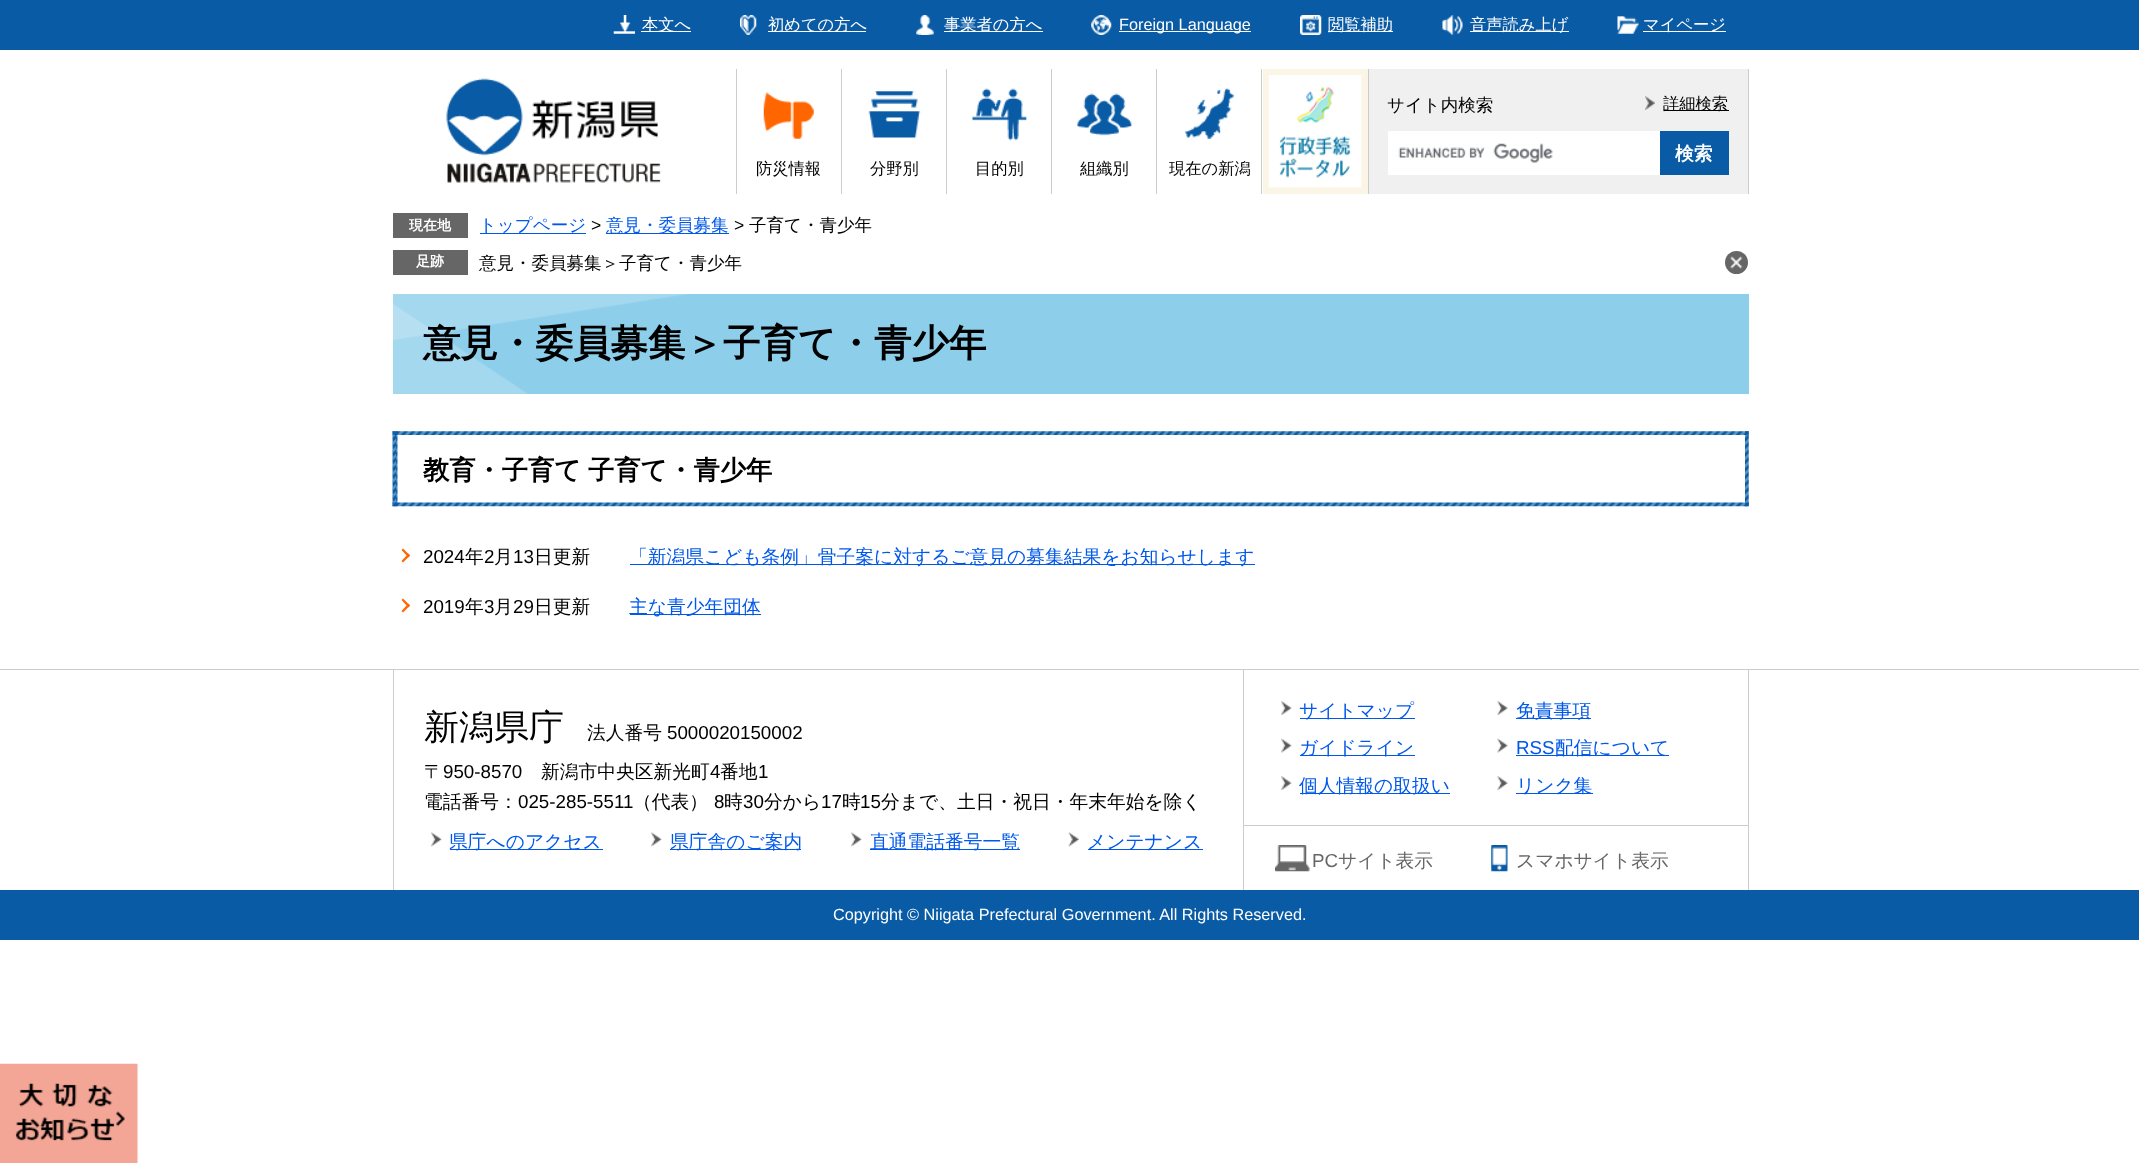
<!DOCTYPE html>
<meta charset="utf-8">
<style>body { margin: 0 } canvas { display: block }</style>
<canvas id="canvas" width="2139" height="1163"></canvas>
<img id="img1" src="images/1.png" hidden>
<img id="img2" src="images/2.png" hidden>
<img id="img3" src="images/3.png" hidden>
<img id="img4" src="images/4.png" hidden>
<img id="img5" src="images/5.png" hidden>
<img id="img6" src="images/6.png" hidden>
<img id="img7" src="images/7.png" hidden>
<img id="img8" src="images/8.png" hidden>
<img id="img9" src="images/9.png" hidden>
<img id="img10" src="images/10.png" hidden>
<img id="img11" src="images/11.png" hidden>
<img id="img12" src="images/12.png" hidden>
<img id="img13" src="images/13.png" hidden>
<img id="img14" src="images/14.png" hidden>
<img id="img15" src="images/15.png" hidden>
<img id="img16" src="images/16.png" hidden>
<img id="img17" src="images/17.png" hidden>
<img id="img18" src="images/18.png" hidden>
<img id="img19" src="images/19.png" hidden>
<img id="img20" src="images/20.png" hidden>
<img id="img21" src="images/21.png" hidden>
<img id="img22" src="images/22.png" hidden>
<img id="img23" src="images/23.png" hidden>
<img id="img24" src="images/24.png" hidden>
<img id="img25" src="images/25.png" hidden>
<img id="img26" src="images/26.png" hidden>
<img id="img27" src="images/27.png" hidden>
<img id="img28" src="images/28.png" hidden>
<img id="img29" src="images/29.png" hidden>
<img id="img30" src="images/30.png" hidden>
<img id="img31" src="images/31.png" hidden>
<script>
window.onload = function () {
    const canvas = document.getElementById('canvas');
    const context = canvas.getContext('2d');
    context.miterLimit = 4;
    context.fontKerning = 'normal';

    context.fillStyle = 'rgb(255, 255, 255)';
    context.fillRect(0, 0, 2139, 1163);
    context.fillStyle = 'rgb(9, 91, 165)';
    context.fillRect(0, 0, 2139, 50);
    context.drawImage(document.getElementById('img1'), 613, 15, 22, 19);
    context.fillStyle = 'rgb(255, 255, 255)';
    context.fillRect(641, 31, 50, 1);
    context.drawImage(document.getElementById('img2'), 740, 15, 17, 20);
    context.fillRect(768, 31, 98, 1);
    context.drawImage(document.getElementById('img3'), 916, 15, 18, 20);
    context.fillRect(944, 31, 99, 1);
    context.drawImage(document.getElementById('img4'), 1091, 15, 21, 20);
    context.fillRect(1119, 31, 132, 1);
    context.drawImage(document.getElementById('img5'), 1300, 15, 22, 20);
    context.fillRect(1328, 31, 65, 1);
    context.drawImage(document.getElementById('img6'), 1442, 15, 21, 20);
    context.fillRect(1470, 31, 99, 1);
    context.drawImage(document.getElementById('img7'), 1617, 16, 22, 18);
    context.fillRect(1643, 31, 83, 1);
    context.drawImage(document.getElementById('img8'), 446, 78, 215, 105);
    context.fillStyle = 'rgb(240, 240, 240)';
    context.fillRect(1369, 69, 379, 125);
    context.fillStyle = 'rgb(204, 204, 204)';
    context.fillRect(1748, 69, 1, 125);
    context.fillRect(1368, 69, 1, 125);
    context.drawImage(document.getElementById('img9'), 1645, 96, 10, 14);
    context.fillStyle = 'rgb(0, 0, 0)';
    context.fillRect(1664, 110, 65, 1);
    context.fillStyle = 'rgb(255, 255, 255)';
    context.fillRect(1388, 131, 272, 44);
    context.drawImage(document.getElementById('img10'), 1398, 143, 155, 20);
    context.fillStyle = 'rgb(9, 91, 165)';
    context.fillRect(1660, 131, 69, 44);
    context.fillStyle = 'rgb(204, 204, 204)';
    context.fillRect(736, 69, 1, 125);
    context.drawImage(document.getElementById('img11'), 763, 92, 51, 47);
    context.fillRect(841, 69, 1, 125);
    context.drawImage(document.getElementById('img12'), 868, 91, 53, 47);
    context.fillRect(946, 69, 1, 125);
    context.drawImage(document.getElementById('img13'), 972, 88, 55, 53);
    context.fillRect(1051, 69, 1, 125);
    context.drawImage(document.getElementById('img14'), 1077, 93, 55, 43);
    context.fillRect(1156, 69, 1, 125);
    context.drawImage(document.getElementById('img15'), 1184, 88, 50, 51);
    context.fillRect(1261, 69, 1, 125);
    context.fillStyle = 'rgb(251, 245, 229)';
    context.fillRect(1263, 69, 105, 125);
    context.drawImage(document.getElementById('img16'), 1268, 75, 94, 113);
    context.fillStyle = 'rgb(102, 102, 102)';
    context.fillRect(393, 213, 75, 25);
    context.fillStyle = 'rgb(0, 88, 234)';
    context.fillRect(480, 233, 106, 1);
    context.fillRect(606, 233, 123, 1);
    context.fillStyle = 'rgb(102, 102, 102)';
    context.fillRect(393, 250, 75, 25);
    context.beginPath();
    context.arc(1736.5, 262.5, 11.5, 0, 2 * Math.PI);
    context.fill();
    context.drawImage(document.getElementById('img17'), 1730, 256, 13, 13);
    context.fillStyle = 'rgb(141, 207, 235)';
    context.fillRect(393, 294, 1356, 100);
    context.drawImage(document.getElementById('img18'), 393, 294, 295, 100);
    context.drawImage(document.getElementById('img19'), 392, 431, 1357, 76);
    context.fillStyle = 'rgb(255, 102, 0)';
    context.beginPath();
    context.moveTo(403, 548.5);
    context.lineTo(410, 555.5);
    context.lineTo(408.5, 557.5);
    context.lineTo(401.5, 550);
    context.closePath();
    context.fill();
    context.beginPath();
    context.moveTo(408.5, 553.5);
    context.lineTo(410, 555.5);
    context.lineTo(403, 562.5);
    context.lineTo(401.5, 561);
    context.closePath();
    context.fill();
    context.fillStyle = 'rgb(0, 88, 234)';
    context.fillRect(630, 564, 625, 1);
    context.fillStyle = 'rgb(255, 102, 0)';
    context.beginPath();
    context.moveTo(403, 598.5);
    context.lineTo(410, 605.5);
    context.lineTo(408.5, 607.5);
    context.lineTo(401.5, 600);
    context.closePath();
    context.fill();
    context.beginPath();
    context.moveTo(408.5, 603.5);
    context.lineTo(410, 605.5);
    context.lineTo(403, 612.5);
    context.lineTo(401.5, 611);
    context.closePath();
    context.fill();
    context.fillStyle = 'rgb(0, 88, 234)';
    context.fillRect(630, 614, 131, 1);
    context.fillStyle = 'rgb(204, 204, 204)';
    context.fillRect(0, 669, 2139, 1);
    context.fillRect(393, 670, 1, 220);
    context.drawImage(document.getElementById('img20'), 431, 832, 11, 15);
    context.fillStyle = 'rgb(0, 88, 234)';
    context.fillRect(450, 849, 153, 1);
    context.drawImage(document.getElementById('img20'), 651, 832, 11, 15);
    context.fillRect(670, 849, 131, 1);
    context.drawImage(document.getElementById('img20'), 851, 832, 11, 15);
    context.fillRect(870, 849, 150, 1);
    context.drawImage(document.getElementById('img21'), 1068, 832, 11, 15);
    context.fillRect(1088, 849, 115, 1);
    context.fillStyle = 'rgb(204, 204, 204)';
    context.fillRect(1748, 670, 1, 220);
    context.fillRect(1243, 670, 1, 220);
    context.fillRect(1244, 825, 504, 1);
    context.drawImage(document.getElementById('img22'), 1281, 701, 11, 14);
    context.fillStyle = 'rgb(0, 88, 234)';
    context.fillRect(1300, 718, 115, 1);
    context.drawImage(document.getElementById('img23'), 1497, 701, 11, 14);
    context.fillRect(1516, 718, 75, 1);
    context.drawImage(document.getElementById('img24'), 1281, 738, 11, 15);
    context.fillRect(1300, 755, 115, 1);
    context.drawImage(document.getElementById('img25'), 1497, 738, 11, 15);
    context.fillRect(1516, 755, 153, 1);
    context.drawImage(document.getElementById('img26'), 1281, 776, 11, 14);
    context.fillRect(1300, 793, 150, 1);
    context.drawImage(document.getElementById('img27'), 1497, 776, 11, 14);
    context.fillRect(1516, 793, 77, 1);
    context.drawImage(document.getElementById('img28'), 1275, 845, 35, 27);
    context.drawImage(document.getElementById('img29'), 1491, 845, 17, 27);
    context.fillStyle = 'rgb(9, 91, 165)';
    context.fillRect(0, 890, 2139, 50);
    context.drawImage(document.getElementById('img30'), 0, 1063, 138, 100);
    context.drawImage(document.getElementById('img31'), 116, 1111, 9, 16);
    context.font = '500 16.25px WenQuanYi Zen Hei';
    context.fillStyle = 'rgb(255, 255, 255)';
    context.fillText('本文へ', 642, 30);
    context.fillText('初めての方へ', 768, 30);
    context.fillText('事業者の方へ', 944, 30);
    context.font = '16.25px Liberation Sans';
    context.fillText('Foreign Language', 1119, 30);
    context.font = '500 16.25px WenQuanYi Zen Hei';
    context.fillText('閲覧補助', 1328, 30);
    context.fillText('音声読み上げ', 1470, 30);
    context.fillText('マイページ', 1643, 30);
    context.fillStyle = 'rgb(0, 0, 0)';
    context.fillText('詳細検索', 1663, 109);
    context.font = '500 17.5px WenQuanYi Zen Hei';
    context.fillText('サイト内検索', 1387, 111);
    context.font = 'bold 18.75px WenQuanYi Zen Hei';
    context.fillStyle = 'rgb(255, 255, 255)';
    context.fillText('検索', 1675, 160);
    context.font = '500 16.25px WenQuanYi Zen Hei';
    context.fillStyle = 'rgb(0, 0, 0)';
    context.fillText('防災情報', 756, 174);
    context.fillText('分野別', 870, 174);
    context.fillText('目的別', 975, 174);
    context.fillText('組織別', 1080, 174);
    context.fillText('現在の新潟', 1169, 174);
    context.font = 'bold 14px WenQuanYi Zen Hei';
    context.fillStyle = 'rgb(255, 255, 255)';
    context.fillText('現在地', 409, 230);
    context.font = '500 17.5px WenQuanYi Zen Hei';
    context.fillStyle = 'rgb(0, 88, 234)';
    context.fillText('トップページ', 479, 231);
    context.font = '17.5px Liberation Sans';
    context.fillStyle = 'rgb(0, 0, 0)';
    context.fillText('>', 591, 231);
    context.font = '500 17.5px WenQuanYi Zen Hei';
    context.fillStyle = 'rgb(0, 88, 234)';
    context.fillText('意見・委員募集', 606, 231);
    context.font = '17.5px Liberation Sans';
    context.fillStyle = 'rgb(0, 0, 0)';
    context.fillText('>', 734, 231);
    context.font = '500 17.5px WenQuanYi Zen Hei';
    context.fillText('子育て・青少年', 749, 231);
    context.font = 'bold 14px WenQuanYi Zen Hei';
    context.fillStyle = 'rgb(255, 255, 255)';
    context.fillText('足跡', 416, 266);
    context.font = '500 17.5px WenQuanYi Zen Hei';
    context.fillStyle = 'rgb(0, 0, 0)';
    context.fillText('意見・委員募集＞子育て・青少年', 479, 269);
    context.font = 'bold 37.5px WenQuanYi Zen Hei';
    context.fillText('意見・委員募集＞子育て・青少年', 423, 356);
    context.wordSpacing = '-1px';
    context.font = 'bold 26.25px WenQuanYi Zen Hei';
    context.fillText('教育・子育て 子育て・青少年', 423, 479);
    context.wordSpacing = '0px';
    context.font = '18.75px Liberation Sans';
    context.fillText('2024', 423, 563);
    context.font = '500 18.75px WenQuanYi Zen Hei';
    context.fillText('年', 465, 563);
    context.font = '18.75px Liberation Sans';
    context.fillText('2', 484, 563);
    context.font = '500 18.75px WenQuanYi Zen Hei';
    context.fillText('月', 494, 563);
    context.font = '18.75px Liberation Sans';
    context.fillText('13', 513, 563);
    context.font = '500 18.75px WenQuanYi Zen Hei';
    context.fillText('日更新', 534, 563);
    context.fillStyle = 'rgb(0, 88, 234)';
    context.fillText('「新潟県こども条例」骨子案に対するご意見の募集結果をお知らせします', 629, 563);
    context.font = '18.75px Liberation Sans';
    context.fillStyle = 'rgb(0, 0, 0)';
    context.fillText('2019', 423, 613);
    context.font = '500 18.75px WenQuanYi Zen Hei';
    context.fillText('年', 465, 613);
    context.font = '18.75px Liberation Sans';
    context.fillText('3', 484, 613);
    context.font = '500 18.75px WenQuanYi Zen Hei';
    context.fillText('月', 494, 613);
    context.font = '18.75px Liberation Sans';
    context.fillText('29', 513, 613);
    context.font = '500 18.75px WenQuanYi Zen Hei';
    context.fillText('日更新', 534, 613);
    context.fillStyle = 'rgb(0, 88, 234)';
    context.fillText('主な青少年団体', 629, 613);
    context.font = '500 35px WenQuanYi Zen Hei';
    context.fillStyle = 'rgb(0, 0, 0)';
    context.fillText('新潟県庁', 424, 739);
    context.font = '500 18.75px WenQuanYi Zen Hei';
    context.fillText('法人番号', 587, 739);
    context.font = '18.75px Liberation Sans';
    context.fillText('5000020150002', 667, 739);
    context.font = '500 18.75px WenQuanYi Zen Hei';
    context.fillText('〒', 424, 778);
    context.font = '18.75px Liberation Sans';
    context.fillText('950-8570', 443, 778);
    context.font = '500 18.75px WenQuanYi Zen Hei';
    context.fillText('新潟市中央区新光町', 541, 778);
    context.font = '18.75px Liberation Sans';
    context.fillText('4', 710, 778);
    context.font = '500 18.75px WenQuanYi Zen Hei';
    context.fillText('番地', 720, 778);
    context.font = '18.75px Liberation Sans';
    context.fillText('1', 758, 778);
    context.font = '500 18.75px WenQuanYi Zen Hei';
    context.fillText('電話番号：', 424, 808);
    context.font = '18.75px Liberation Sans';
    context.fillText('025-285-5511', 518, 808);
    context.font = '500 18.75px WenQuanYi Zen Hei';
    context.fillText('（代表）', 633, 808);
    context.font = '18.75px Liberation Sans';
    context.fillText('8', 714, 808);
    context.font = '500 18.75px WenQuanYi Zen Hei';
    context.fillText('時', 724, 808);
    context.font = '18.75px Liberation Sans';
    context.fillText('30', 743, 808);
    context.font = '500 18.75px WenQuanYi Zen Hei';
    context.fillText('分から', 764, 808);
    context.font = '18.75px Liberation Sans';
    context.fillText('17', 821, 808);
    context.font = '500 18.75px WenQuanYi Zen Hei';
    context.fillText('時', 842, 808);
    context.font = '18.75px Liberation Sans';
    context.fillText('15', 860, 808);
    context.font = '500 18.75px WenQuanYi Zen Hei';
    context.fillText('分まで、土日・祝日・年末年始を除く', 881, 808);
    context.fillStyle = 'rgb(0, 88, 234)';
    context.fillText('県庁へのアクセス', 449, 848);
    context.fillText('県庁舎のご案内', 670, 848);
    context.fillText('直通電話番号一覧', 870, 848);
    context.fillText('メンテナンス', 1087, 848);
    context.fillText('サイトマップ', 1299, 717);
    context.fillText('免責事項', 1516, 717);
    context.fillText('ガイドライン', 1299, 754);
    context.font = '18.75px Liberation Sans';
    context.fillText('RSS', 1516, 754);
    context.font = '500 18.75px WenQuanYi Zen Hei';
    context.fillText('配信について', 1555, 754);
    context.fillText('個人情報の取扱い', 1299, 792);
    context.fillText('リンク集', 1516, 792);
    context.font = '18.75px Liberation Sans';
    context.fillStyle = 'rgb(102, 102, 102)';
    context.fillText('PC', 1312, 867);
    context.font = '500 18.75px WenQuanYi Zen Hei';
    context.fillText('サイト表示', 1338, 867);
    context.fillText('スマホサイト表示', 1516, 867);
    context.font = '16.25px Liberation Sans';
    context.fillStyle = 'rgb(255, 255, 255)';
    context.fillText('Copyright © Niigata Prefectural Government. All Rights Reserved.', 833, 920);
};
</script>
